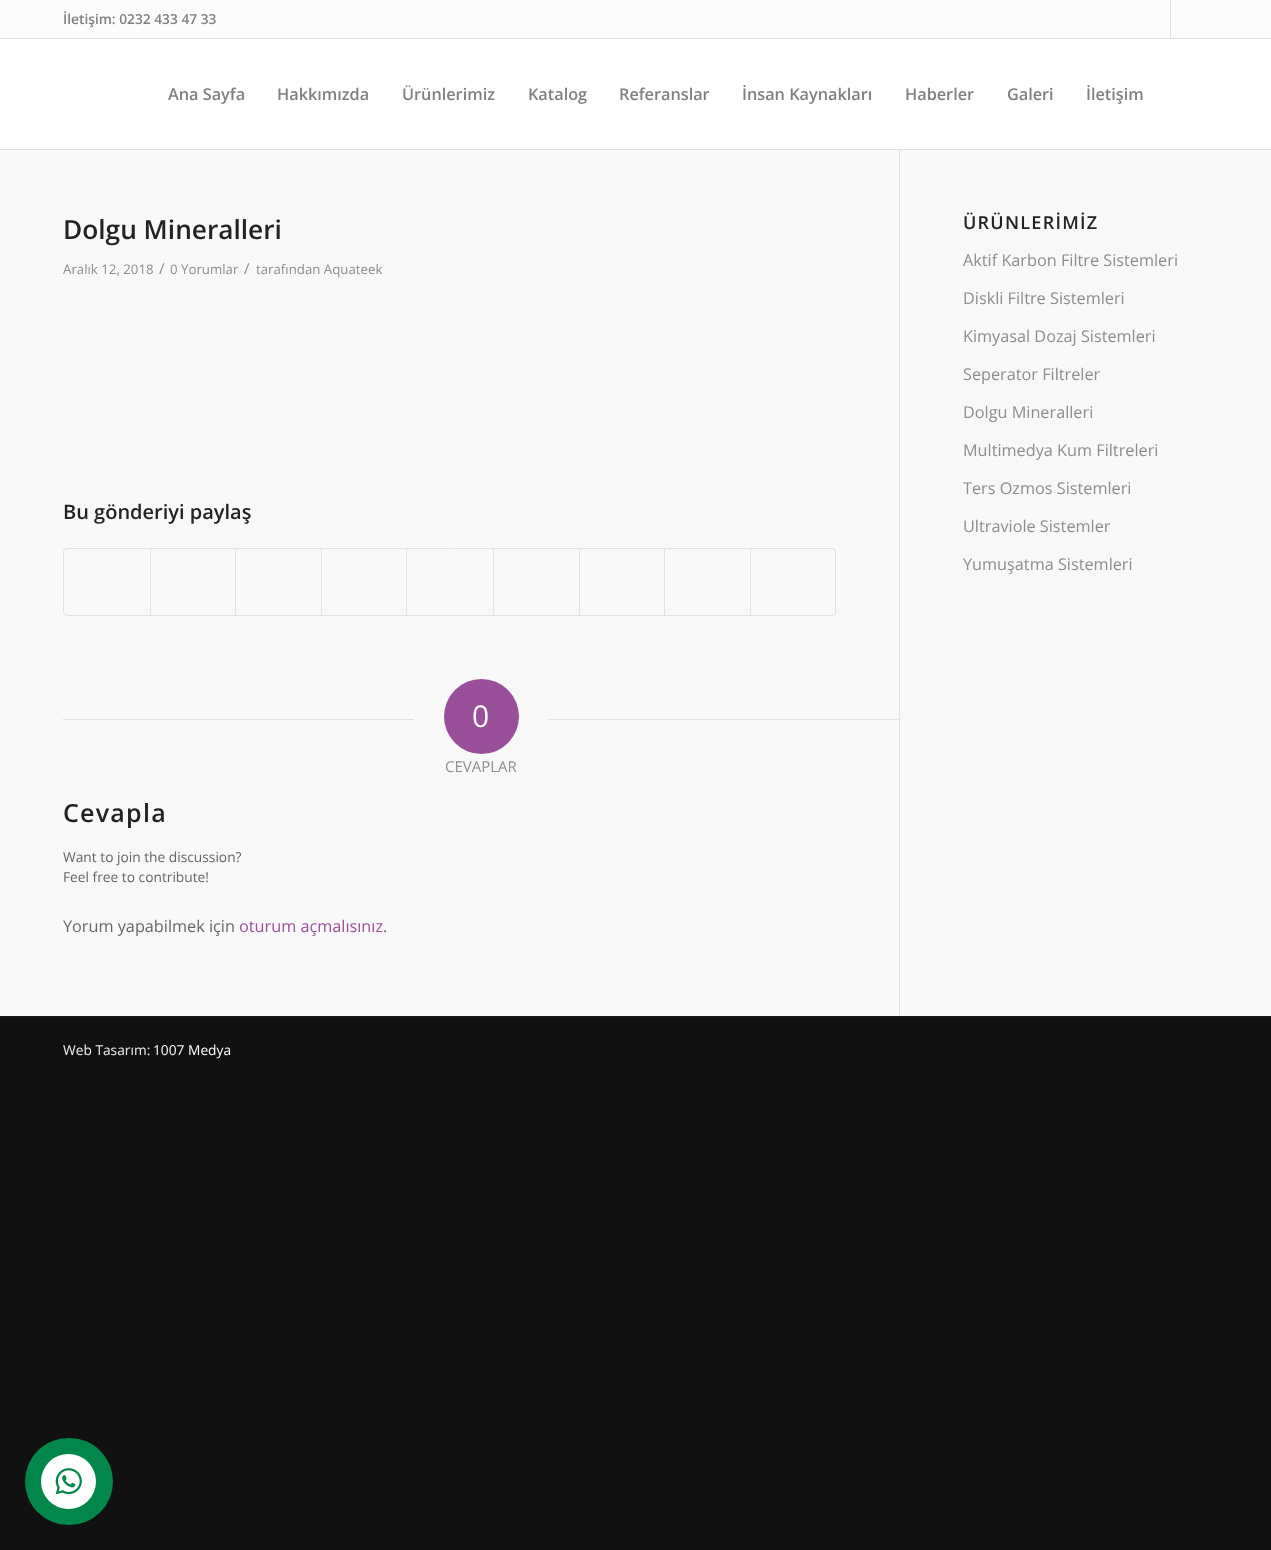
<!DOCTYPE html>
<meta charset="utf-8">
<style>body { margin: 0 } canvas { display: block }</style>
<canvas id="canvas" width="1271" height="1550"></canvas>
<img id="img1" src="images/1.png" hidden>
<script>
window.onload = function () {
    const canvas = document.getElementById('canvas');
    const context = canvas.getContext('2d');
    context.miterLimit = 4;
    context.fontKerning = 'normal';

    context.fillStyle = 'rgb(17, 17, 17)';
    context.fillRect(0, 0, 1271, 1550);
    context.fillStyle = 'rgb(252, 252, 252)';
    context.fillRect(0, 0, 1271, 38);
    context.fillStyle = 'rgb(225, 225, 225)';
    context.fillRect(0, 38, 1271, 1);
    context.fillRect(1170, 0, 1, 38);
    context.fillRect(0, 149, 1271, 1);
    context.fillStyle = 'rgb(255, 255, 255)';
    context.fillRect(0, 39, 1271, 110);
    context.fillStyle = 'rgb(248, 248, 248)';
    context.fillRect(0, 150, 1271, 866);
    context.fillStyle = 'rgb(225, 225, 225)';
    context.fillRect(899, 150, 1, 866);
    context.beginPath();
    context.roundRect(63.5, 548.5, 772, 67, 3.5);
    context.strokeStyle = 'rgb(225, 225, 225)';
    context.stroke();
    context.fillRect(150, 549, 1, 66);
    context.fillRect(235, 549, 1, 66);
    context.fillRect(321, 549, 1, 66);
    context.fillRect(406, 549, 1, 66);
    context.fillRect(493, 549, 1, 66);
    context.fillRect(579, 549, 1, 66);
    context.fillRect(664, 549, 1, 66);
    context.fillRect(750, 549, 1, 66);
    context.fillRect(63, 719, 351, 1);
    context.fillStyle = 'rgb(153, 79, 153)';
    context.beginPath();
    context.arc(481.5, 716.5, 37.5, 0, 2 * Math.PI);
    context.fill();
    context.fillStyle = 'rgb(225, 225, 225)';
    context.fillRect(548, 719, 351, 1);
    context.fillStyle = 'rgb(22, 22, 22)';
    context.fillRect(0, 1016, 1271, 1);
    context.fillStyle = 'rgb(0, 135, 73)';
    context.beginPath();
    context.roundRect(25, 1438, 88, 87, 43.5);
    context.fill();
    context.fillStyle = 'rgb(255, 255, 255)';
    context.beginPath();
    context.arc(68.5, 1481.5, 27.5, 0, 2 * Math.PI);
    context.fill();
    context.drawImage(document.getElementById('img1'), 55, 1468, 27, 27);
    context.font = '600 13.75px Open Sans';
    context.fillStyle = 'rgb(128, 128, 128)';
    context.fillText('İletişim: 0232 433 47 33', 63, 24);
    context.font = '600 16.25px Open Sans';
    context.fillText('Ana Sayfa', 168, 100);
    context.fillText('Hakkımızda', 277, 100);
    context.fillText('Ürünlerimiz', 402, 100);
    context.fillText('Katalog', 528, 100);
    context.fillText('Referanslar', 619, 100);
    context.fillText('İnsan Kaynakları', 742, 100);
    context.fillText('Haberler', 905, 100);
    context.fillText('Galeri', 1007, 100);
    context.fillText('İletişim', 1086, 100);
    context.font = '600 26.25px Open Sans';
    context.fillStyle = 'rgb(34, 34, 34)';
    context.fillText('Dolgu Mineralleri', 63, 239);
    context.font = '13.25px Open Sans';
    context.fillStyle = 'rgb(141, 141, 141)';
    context.fillText('Aralık 12, 2018', 63, 274);
    context.font = '15px Open Sans';
    context.fillText('/', 159, 274);
    context.font = '13.25px Open Sans';
    context.fillText('0 Yorumlar', 170, 274);
    context.font = '15px Open Sans';
    context.fillText('/', 244, 274);
    context.font = '13.25px Open Sans';
    context.fillText('tarafından Aquateek', 256, 274);
    context.font = '600 20px Open Sans';
    context.fillStyle = 'rgb(34, 34, 34)';
    context.fillText('Bu gönderiyi paylaş', 63, 519);
    context.font = '30px Open Sans';
    context.fillStyle = 'rgb(255, 255, 255)';
    context.fillText('0', 472, 727);
    context.font = '15px Open Sans';
    context.fillStyle = 'rgb(141, 141, 141)';
    context.fillText('CEVAPLAR', 445, 772);
    context.letterSpacing = '1.25px';
    context.font = '600 25px Open Sans';
    context.fillStyle = 'rgb(34, 34, 34)';
    context.fillText('Cevapla', 63, 822);
    context.letterSpacing = '0px';
    context.font = '13.75px Open Sans';
    context.fillStyle = 'rgb(102, 102, 102)';
    context.fillText('Want to join the discussion?', 63, 862);
    context.fillText('Feel free to contribute!', 63, 882);
    context.font = '16.25px Open Sans';
    context.fillText('Yorum yapabilmek için', 63, 932);
    context.fillStyle = 'rgb(153, 79, 153)';
    context.fillText('oturum açmalısınız', 239, 932);
    context.fillStyle = 'rgb(102, 102, 102)';
    context.fillText('.', 383, 932);
    context.letterSpacing = '1.25px';
    context.font = '600 18px Open Sans';
    context.fillStyle = 'rgb(34, 34, 34)';
    context.fillText('ÜRÜNLERİMİZ', 963, 229);
    context.letterSpacing = '0px';
    context.font = '16.25px Open Sans';
    context.fillStyle = 'rgb(141, 141, 141)';
    context.fillText('Aktif Karbon Filtre Sistemleri', 963, 266);
    context.fillText('Diskli Filtre Sistemleri', 963, 304);
    context.fillText('Kimyasal Dozaj Sistemleri', 963, 342);
    context.fillText('Seperator Filtreler', 963, 380);
    context.fillText('Dolgu Mineralleri', 963, 418);
    context.fillText('Multimedya Kum Filtreleri', 963, 456);
    context.fillText('Ters Ozmos Sistemleri', 963, 494);
    context.fillText('Ultraviole Sistemler', 963, 532);
    context.fillText('Yumuşatma Sistemleri', 963, 570);
    context.font = '13.75px Open Sans';
    context.fillStyle = 'rgb(238, 238, 238)';
    context.fillText('Web Tasarım:', 63, 1055);
    context.fillStyle = 'rgb(255, 255, 255)';
    context.fillText('1007 Medya', 153, 1055);
};
</script>
